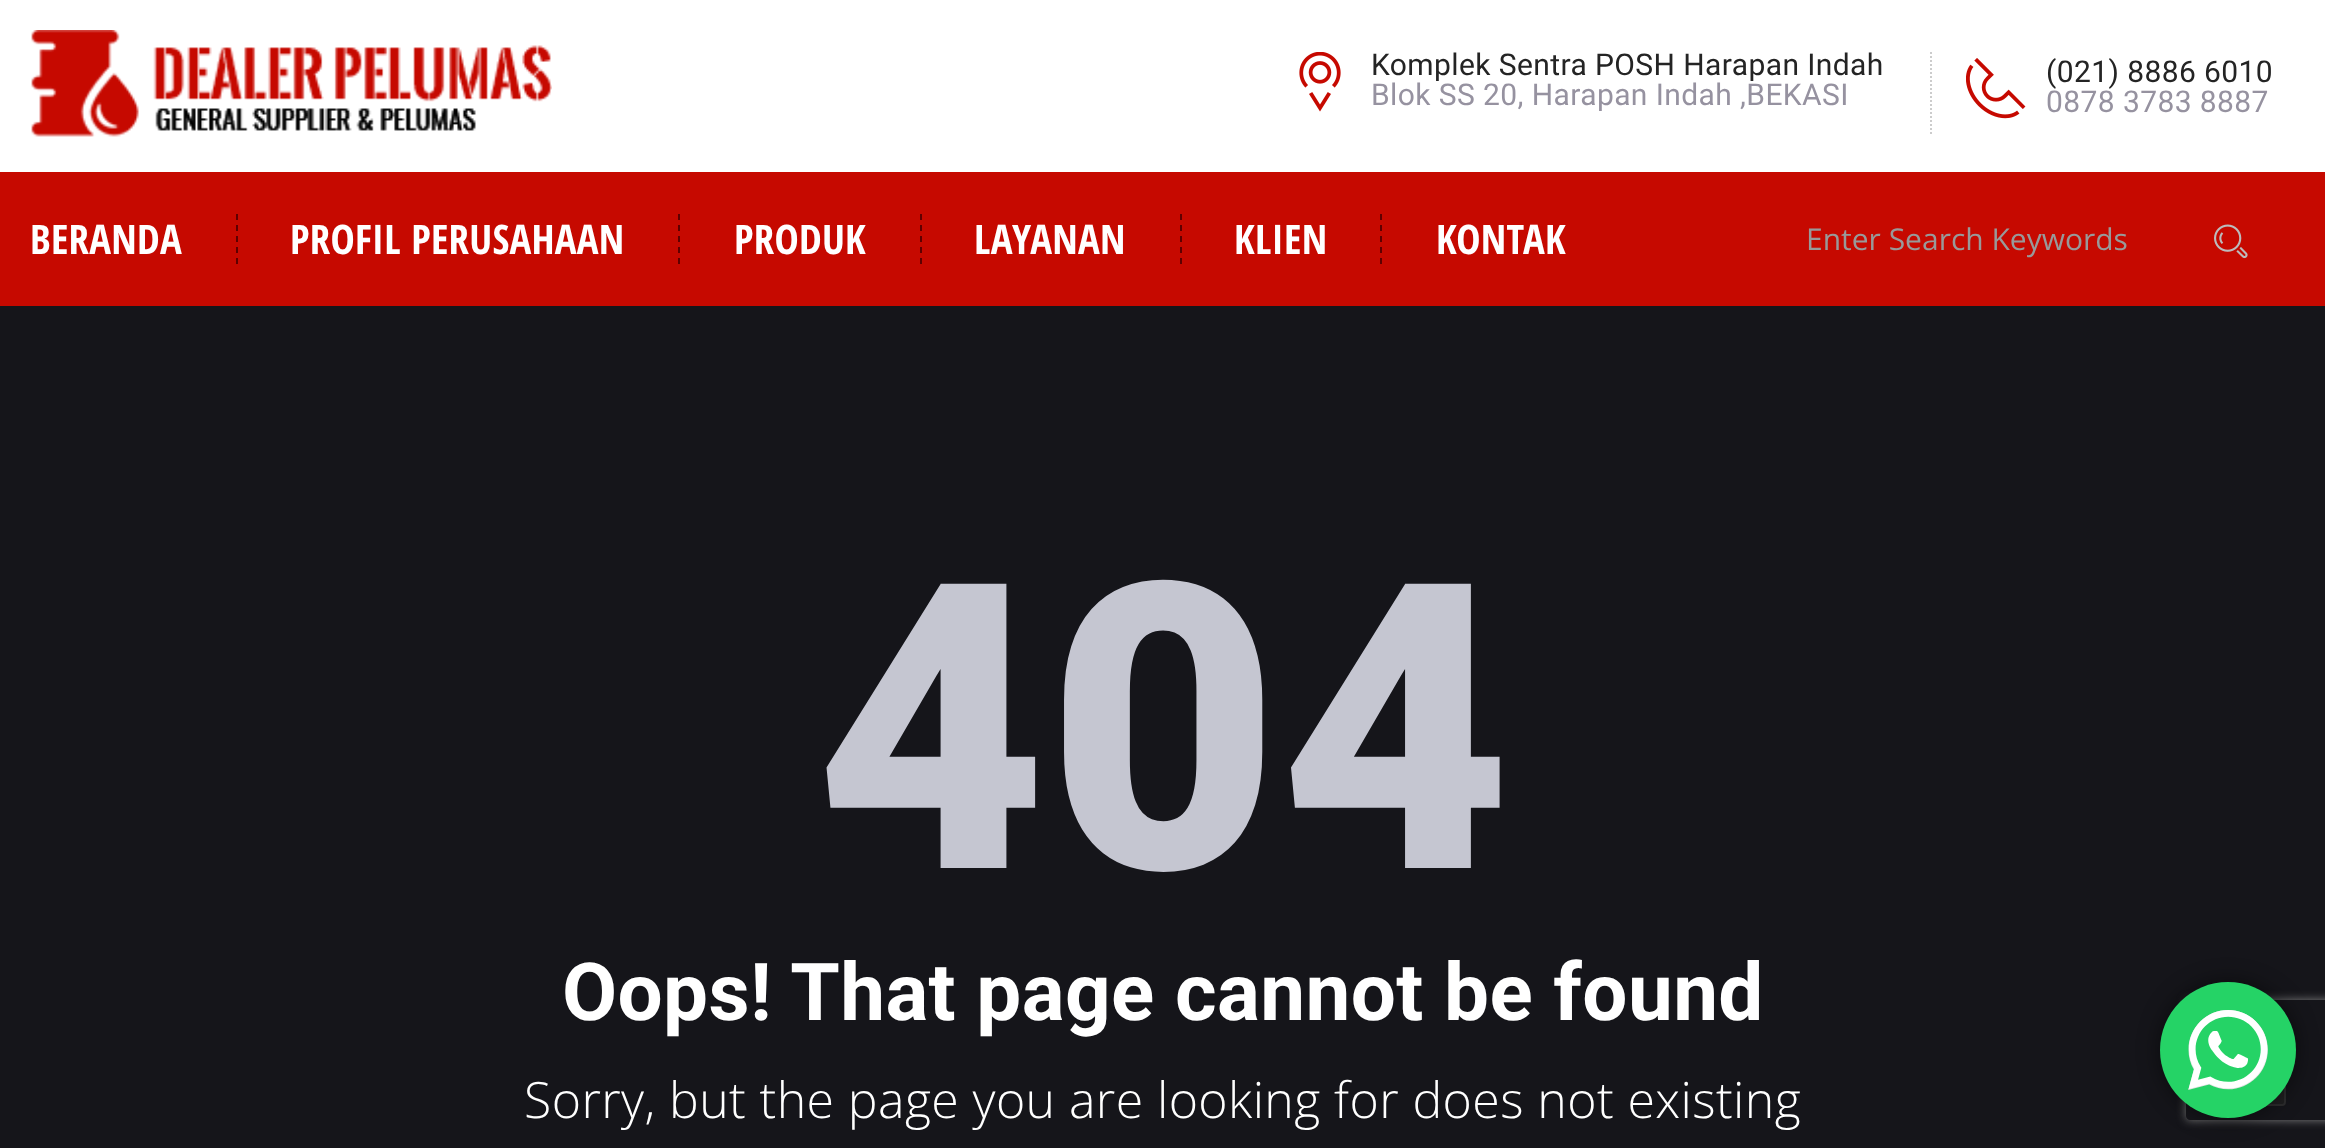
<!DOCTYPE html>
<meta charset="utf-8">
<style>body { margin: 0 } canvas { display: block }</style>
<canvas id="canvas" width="2325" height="1148"></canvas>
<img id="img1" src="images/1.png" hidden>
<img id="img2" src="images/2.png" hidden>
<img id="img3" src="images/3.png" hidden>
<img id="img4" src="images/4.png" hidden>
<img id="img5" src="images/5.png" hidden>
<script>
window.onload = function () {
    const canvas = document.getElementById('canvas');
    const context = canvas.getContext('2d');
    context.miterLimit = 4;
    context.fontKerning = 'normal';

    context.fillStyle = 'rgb(255, 255, 255)';
    context.fillRect(0, 0, 2325, 1148);
    context.drawImage(document.getElementById('img1'), 31, 30, 521, 107);
    context.beginPath();
    context.moveTo(1931, 52);
    context.lineTo(1931, 136);
    context.strokeStyle = 'rgb(204, 204, 204)';
    context.lineWidth = 2;
    context.setLineDash([2, 2]);
    context.stroke();
    context.drawImage(document.getElementById('img2'), 1299, 52, 42, 60);
    context.drawImage(document.getElementById('img3'), 1966, 58, 60, 61);
    context.fillStyle = 'rgb(198, 9, 0)';
    context.fillRect(0, 172, 2325, 134);
    context.beginPath();
    context.moveTo(237, 214);
    context.lineTo(237, 264);
    context.strokeStyle = 'rgb(94, 0, 0)';
    context.setLineDash([6, 5]);
    context.stroke();
    context.beginPath();
    context.moveTo(679, 214);
    context.lineTo(679, 264);
    context.stroke();
    context.beginPath();
    context.moveTo(921, 214);
    context.lineTo(921, 264);
    context.stroke();
    context.beginPath();
    context.moveTo(1181, 214);
    context.lineTo(1181, 264);
    context.stroke();
    context.beginPath();
    context.moveTo(1381, 214);
    context.lineTo(1381, 264);
    context.stroke();
    context.drawImage(document.getElementById('img4'), 2214, 224, 34, 35);
    context.fillStyle = 'rgb(21, 21, 26)';
    context.fillRect(0, 306, 2325, 842);
    context.save();
    context.beginPath();
    context.moveTo(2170, 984);
    context.lineTo(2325, 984);
    context.lineTo(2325, 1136);
    context.lineTo(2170, 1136);
    context.closePath();
    context.moveTo(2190, 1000);
    context.lineTo(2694, 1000);
    context.bezierCurveTo(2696, 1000, 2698, 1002, 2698, 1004);
    context.lineTo(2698, 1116);
    context.bezierCurveTo(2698, 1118, 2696, 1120, 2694, 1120);
    context.lineTo(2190, 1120);
    context.bezierCurveTo(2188, 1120, 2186, 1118, 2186, 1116);
    context.lineTo(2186, 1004);
    context.bezierCurveTo(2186, 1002, 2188, 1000, 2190, 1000);
    context.closePath();
    context.clip('evenodd');
    context.fillStyle = 'rgb(128, 128, 128)';
    context.filter = 'blur(5px)';
    context.beginPath();
    context.roundRect(2186, 1000, 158, 120, 4);
    context.fill();
    context.filter = 'none';
    context.restore();
    context.fillStyle = 'rgb(31, 31, 32)';
    context.beginPath();
    context.roundRect(2203, 1017, 82, 88, 3);
    context.fill();
    context.strokeStyle = 'rgb(45, 45, 46)';
    context.setLineDash([]);
    context.stroke();
    context.fillStyle = 'rgba(0, 0, 0, 0.5)';
    context.filter = 'blur(11px)';
    context.beginPath();
    context.roundRect(2160, 982, 136, 136, 68);
    context.fill();
    context.filter = 'none';
    context.fillStyle = 'rgb(37, 211, 102)';
    context.beginPath();
    context.arc(2228, 1050, 68, 0, 2 * Math.PI);
    context.fill();
    context.drawImage(document.getElementById('img5'), 2188, 1010, 80, 80);
    context.letterSpacing = '0.4px';
    context.font = '30px Roboto';
    context.fillStyle = 'rgb(36, 36, 36)';
    context.fillText('Komplek Sentra POSH Harapan Indah', 1371, 75);
    context.fillStyle = 'rgb(150, 146, 160)';
    context.fillText('Blok SS 20, Harapan Indah ,BEKASI', 1371, 105);
    context.fillStyle = 'rgb(36, 36, 36)';
    context.fillText('(021) 8886 6010', 2046, 82);
    context.fillStyle = 'rgb(150, 146, 160)';
    context.fillText('0878 3783 8887', 2046, 112);
    context.letterSpacing = '0.25px';
    context.font = 'bold 40.75px Open Sans Condensed';
    context.fillStyle = 'rgb(255, 255, 255)';
    context.fillText('BERANDA', 30, 254);
    context.fillText('PROFIL PERUSAHAAN', 290, 254);
    context.fillText('PRODUK', 734, 254);
    context.fillText('LAYANAN', 974, 254);
    context.fillText('KLIEN', 1234, 254);
    context.fillText('KONTAK', 1436, 254);
    context.letterSpacing = '0px';
    context.font = '30px Open Sans';
    context.fillStyle = 'rgb(153, 153, 153)';
    context.fillText('Enter Search Keywords', 1806, 250);
    context.letterSpacing = '0.4px';
    context.font = '900 400px Roboto';
    context.fillStyle = 'rgb(197, 198, 209)';
    context.fillText('404', 815, 868);
    context.font = 'bold 80px Roboto';
    context.fillStyle = 'rgb(255, 255, 255)';
    context.fillText('Oops! That page cannot be found', 562, 1020);
    context.font = '300 50px Open Sans';
    context.fillText('Sorry, but the page you are looking for does not existing', 524, 1118);
};
</script>
